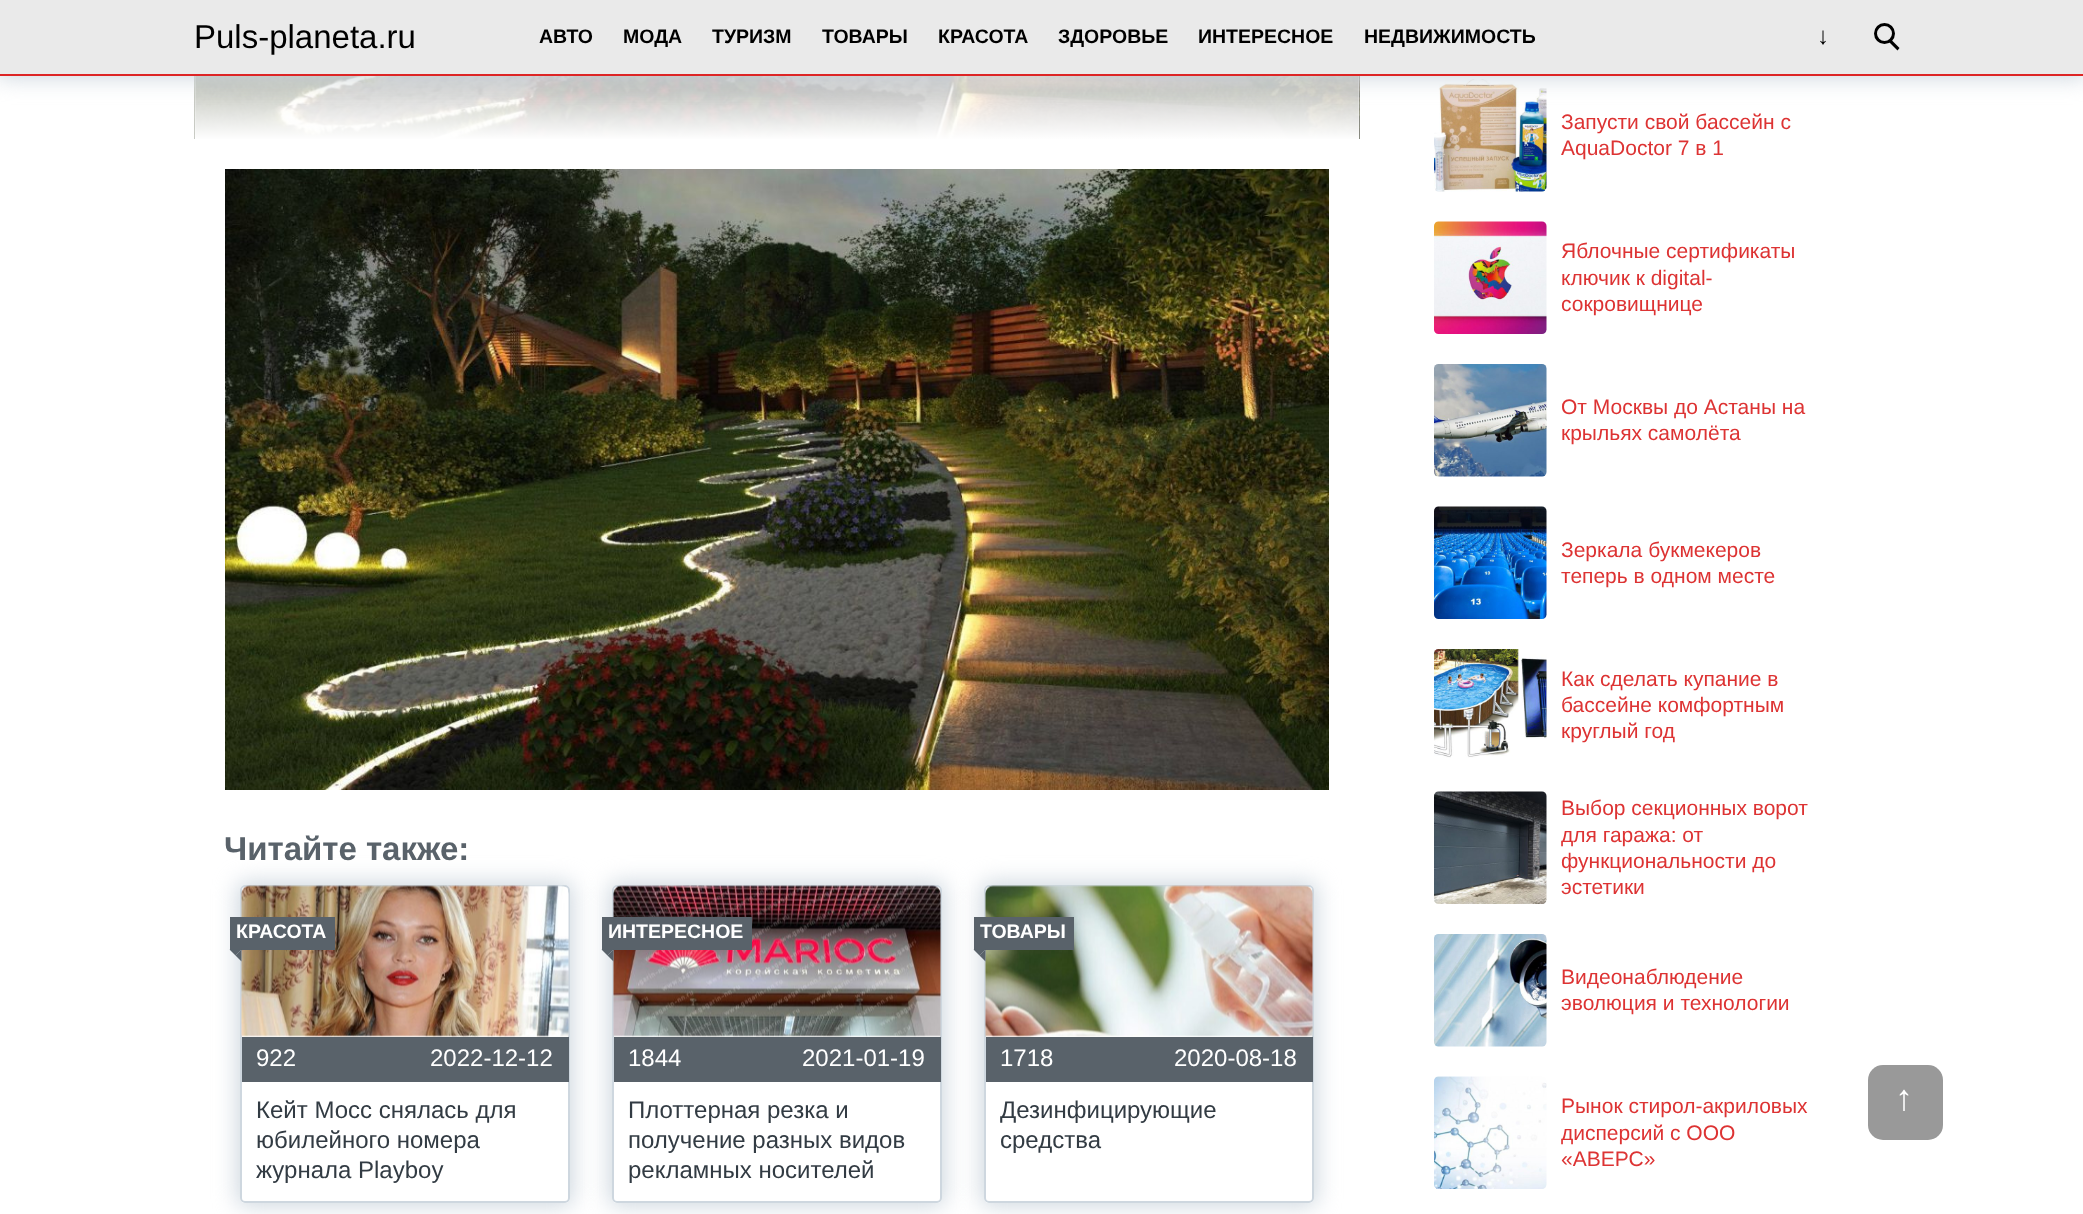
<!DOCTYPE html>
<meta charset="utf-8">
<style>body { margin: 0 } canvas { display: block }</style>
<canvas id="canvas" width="2083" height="1214"></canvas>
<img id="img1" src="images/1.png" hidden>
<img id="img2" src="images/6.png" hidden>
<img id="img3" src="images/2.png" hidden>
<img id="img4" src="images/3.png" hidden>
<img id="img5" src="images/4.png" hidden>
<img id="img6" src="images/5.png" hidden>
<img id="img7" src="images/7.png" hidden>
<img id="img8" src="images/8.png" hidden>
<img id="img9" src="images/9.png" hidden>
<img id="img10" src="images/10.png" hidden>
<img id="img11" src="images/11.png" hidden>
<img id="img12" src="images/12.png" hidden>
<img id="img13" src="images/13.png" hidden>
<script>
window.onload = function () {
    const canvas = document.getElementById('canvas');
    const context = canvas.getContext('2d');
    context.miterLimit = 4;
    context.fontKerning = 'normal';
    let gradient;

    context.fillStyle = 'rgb(255, 255, 255)';
    context.fillRect(0, 0, 2083, 1214);
    context.drawImage(document.getElementById('img1'), 194, 76, 1166, 63);
    gradient = context.createLinearGradient(777, 34, 777, 140);
    gradient.addColorStop(0, 'rgba(255, 255, 255, 0)');
    gradient.addColorStop(0.25, 'rgba(255, 255, 255, 0.6)');
    gradient.addColorStop(1, 'rgb(255, 255, 255)');
    context.fillStyle = gradient;
    context.fillRect(195, 76, 1164, 63);
    context.drawImage(document.getElementById('img2'), 1434, 79, 113, 113);
    context.fillStyle = 'rgb(206, 215, 223)';
    context.filter = 'blur(11px)';
    context.beginPath();
    context.rect(-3, -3, 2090, 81);
    context.fill();
    context.filter = 'none';
    context.fillStyle = 'rgb(234, 234, 234)';
    context.fillRect(0, 0, 2083, 74);
    context.fillStyle = 'rgb(221, 37, 37)';
    context.fillRect(0, 74, 2083, 2);
    context.beginPath();
    context.arc(1884.5, 33.5, 9, 0, 2 * Math.PI);
    context.strokeStyle = 'rgb(0, 0, 0)';
    context.lineWidth = 3;
    context.stroke();
    context.fillStyle = 'rgb(0, 0, 0)';
    context.beginPath();
    context.moveTo(1891, 39.5);
    context.lineTo(1899.5, 48);
    context.lineTo(1897.5, 50.5);
    context.lineTo(1889, 42);
    context.closePath();
    context.fill();
    context.drawImage(document.getElementById('img3'), 225, 169, 1104, 621);
    context.save();
    context.beginPath();
    context.moveTo(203, 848);
    context.lineTo(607, 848);
    context.lineTo(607, 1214);
    context.lineTo(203, 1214);
    context.closePath();
    context.moveTo(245, 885);
    context.lineTo(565, 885);
    context.bezierCurveTo(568, 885, 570, 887, 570, 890);
    context.lineTo(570, 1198);
    context.bezierCurveTo(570, 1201, 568, 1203, 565, 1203);
    context.lineTo(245, 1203);
    context.bezierCurveTo(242, 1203, 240, 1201, 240, 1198);
    context.lineTo(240, 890);
    context.bezierCurveTo(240, 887, 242, 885, 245, 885);
    context.closePath();
    context.clip('evenodd');
    context.fillStyle = 'rgb(206, 215, 223)';
    context.filter = 'blur(11px)';
    context.beginPath();
    context.roundRect(237, 882, 336, 324, 8);
    context.fill();
    context.filter = 'none';
    context.restore();
    context.beginPath();
    context.roundRect(241, 886, 328, 316, 4);
    context.strokeStyle = 'rgb(206, 215, 223)';
    context.lineWidth = 2;
    context.stroke();
    context.drawImage(document.getElementById('img4'), 241, 885, 328, 152);
    context.fillStyle = 'rgb(89, 98, 106)';
    context.fillRect(230, 917, 105, 33);
    context.beginPath();
    context.moveTo(229.5, 949.5);
    context.lineTo(241.5, 949.5);
    context.lineTo(235.5, 955.5);
    context.closePath();
    context.fill();
    context.beginPath();
    context.moveTo(241.5, 949.5);
    context.lineTo(241.5, 961.5);
    context.lineTo(235.5, 955.5);
    context.closePath();
    context.fill();
    context.fillRect(242, 1037, 327, 45);
    context.save();
    context.beginPath();
    context.moveTo(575, 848);
    context.lineTo(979, 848);
    context.lineTo(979, 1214);
    context.lineTo(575, 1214);
    context.closePath();
    context.moveTo(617, 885);
    context.lineTo(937, 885);
    context.bezierCurveTo(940, 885, 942, 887, 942, 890);
    context.lineTo(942, 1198);
    context.bezierCurveTo(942, 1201, 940, 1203, 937, 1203);
    context.lineTo(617, 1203);
    context.bezierCurveTo(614, 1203, 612, 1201, 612, 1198);
    context.lineTo(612, 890);
    context.bezierCurveTo(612, 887, 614, 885, 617, 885);
    context.closePath();
    context.clip('evenodd');
    context.fillStyle = 'rgb(206, 215, 223)';
    context.filter = 'blur(11px)';
    context.beginPath();
    context.roundRect(609, 882, 336, 324, 8);
    context.fill();
    context.filter = 'none';
    context.restore();
    context.beginPath();
    context.roundRect(613, 886, 328, 316, 4);
    context.stroke();
    context.drawImage(document.getElementById('img5'), 613, 885, 328, 152);
    context.fillRect(602, 917, 150, 33);
    context.beginPath();
    context.moveTo(601.5, 949.5);
    context.lineTo(613.5, 949.5);
    context.lineTo(607.5, 955.5);
    context.closePath();
    context.fill();
    context.beginPath();
    context.moveTo(613.5, 949.5);
    context.lineTo(613.5, 961.5);
    context.lineTo(607.5, 955.5);
    context.closePath();
    context.fill();
    context.fillRect(614, 1037, 327, 45);
    context.save();
    context.beginPath();
    context.moveTo(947, 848);
    context.lineTo(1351, 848);
    context.lineTo(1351, 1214);
    context.lineTo(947, 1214);
    context.closePath();
    context.moveTo(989, 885);
    context.lineTo(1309, 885);
    context.bezierCurveTo(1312, 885, 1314, 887, 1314, 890);
    context.lineTo(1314, 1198);
    context.bezierCurveTo(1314, 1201, 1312, 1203, 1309, 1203);
    context.lineTo(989, 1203);
    context.bezierCurveTo(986, 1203, 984, 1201, 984, 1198);
    context.lineTo(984, 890);
    context.bezierCurveTo(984, 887, 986, 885, 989, 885);
    context.closePath();
    context.clip('evenodd');
    context.fillStyle = 'rgb(206, 215, 223)';
    context.filter = 'blur(11px)';
    context.beginPath();
    context.roundRect(981, 882, 336, 324, 8);
    context.fill();
    context.filter = 'none';
    context.restore();
    context.beginPath();
    context.roundRect(985, 886, 328, 316, 4);
    context.stroke();
    context.drawImage(document.getElementById('img6'), 985, 885, 328, 152);
    context.fillRect(974, 917, 100, 33);
    context.beginPath();
    context.moveTo(973.5, 949.5);
    context.lineTo(985.5, 949.5);
    context.lineTo(979.5, 955.5);
    context.closePath();
    context.fill();
    context.beginPath();
    context.moveTo(985.5, 949.5);
    context.lineTo(985.5, 961.5);
    context.lineTo(979.5, 955.5);
    context.closePath();
    context.fill();
    context.fillRect(986, 1037, 327, 45);
    context.drawImage(document.getElementById('img7'), 1434, 221, 113, 113);
    context.drawImage(document.getElementById('img8'), 1434, 364, 113, 113);
    context.drawImage(document.getElementById('img9'), 1434, 506, 113, 113);
    context.drawImage(document.getElementById('img10'), 1433, 649, 114, 109);
    context.drawImage(document.getElementById('img11'), 1434, 791, 113, 113);
    context.drawImage(document.getElementById('img12'), 1434, 934, 113, 113);
    context.drawImage(document.getElementById('img13'), 1434, 1076, 113, 113);
    context.fillStyle = 'rgb(153, 153, 153)';
    context.beginPath();
    context.roundRect(1868, 1065, 75, 75, 15);
    context.fill();
    context.font = '33px Liberation Sans';
    context.fillStyle = 'rgb(0, 0, 0)';
    context.fillText('Puls-planeta.ru', 194, 48);
    context.font = 'bold 19.5px Liberation Sans';
    context.fillText('АВТО', 539, 43);
    context.fillText('МОДА', 623, 43);
    context.fillText('ТУРИЗМ', 712, 43);
    context.fillText('ТОВАРЫ', 822, 43);
    context.fillText('КРАСОТА', 938, 43);
    context.fillText('ЗДОРОВЬЕ', 1058, 43);
    context.fillText('ИНТЕРЕСНОЕ', 1198, 43);
    context.fillText('НЕДВИЖИМОСТЬ', 1364, 43);
    context.font = '24px Liberation Sans';
    context.fillText('↓', 1817, 44);
    context.font = 'bold 33px Liberation Sans';
    context.fillStyle = 'rgb(89, 98, 106)';
    context.fillText('Читайте также:', 224, 860);
    context.font = 'bold 19.5px Liberation Sans';
    context.fillStyle = 'rgb(255, 255, 255)';
    context.fillText('КРАСОТА', 236, 938);
    context.font = '24px Liberation Sans';
    context.fillText('922', 256, 1066);
    context.fillText('2022-12-12', 430, 1066);
    context.fillStyle = 'rgb(50, 59, 67)';
    context.fillText('Кейт Мосс снялась для', 256, 1118);
    context.fillText('юбилейного номера', 256, 1148);
    context.fillText('журнала Playboy', 256, 1178);
    context.font = 'bold 19.5px Liberation Sans';
    context.fillStyle = 'rgb(255, 255, 255)';
    context.fillText('ИНТЕРЕСНОЕ', 608, 938);
    context.font = '24px Liberation Sans';
    context.fillText('1844', 628, 1066);
    context.fillText('2021-01-19', 802, 1066);
    context.fillStyle = 'rgb(50, 59, 67)';
    context.fillText('Плоттерная резка и', 628, 1118);
    context.fillText('получение разных видов', 628, 1148);
    context.fillText('рекламных носителей', 628, 1178);
    context.font = 'bold 19.5px Liberation Sans';
    context.fillStyle = 'rgb(255, 255, 255)';
    context.fillText('ТОВАРЫ', 980, 938);
    context.font = '24px Liberation Sans';
    context.fillText('1718', 1000, 1066);
    context.fillText('2020-08-18', 1174, 1066);
    context.fillStyle = 'rgb(50, 59, 67)';
    context.fillText('Дезинфицирующие', 1000, 1118);
    context.fillText('средства', 1000, 1148);
    context.font = '21px Liberation Sans';
    context.fillStyle = 'rgb(221, 51, 51)';
    context.fillText('Запусти свой бассейн с', 1561, 129);
    context.fillText('AquaDoctor 7 в 1', 1561, 155);
    context.fillText('Яблочные сертификаты', 1561, 258);
    context.fillText('ключик к digital-', 1561, 285);
    context.fillText('сокровищнице', 1561, 311);
    context.fillText('От Москвы до Астаны на', 1561, 414);
    context.fillText('крыльях самолёта', 1561, 440);
    context.fillText('Зеркала букмекеров', 1561, 557);
    context.fillText('теперь в одном месте', 1561, 583);
    context.fillText('Как сделать купание в', 1561, 686);
    context.fillText('бассейне комфортным', 1561, 712);
    context.fillText('круглый год', 1561, 738);
    context.fillText('Выбор секционных ворот', 1561, 815);
    context.fillText('для гаража: от', 1561, 842);
    context.fillText('функциональности до', 1561, 868);
    context.fillText('эстетики', 1561, 894);
    context.fillText('Видеонаблюдение', 1561, 984);
    context.fillText('эволюция и технологии', 1561, 1010);
    context.fillText('Рынок стирол-акриловых', 1561, 1113);
    context.fillText('дисперсий с ООО', 1561, 1140);
    context.fillText('«АВЕРС»', 1561, 1166);
    context.font = 'bold 36px Liberation Sans';
    context.fillStyle = 'rgb(255, 255, 255)';
    context.fillText('↑', 1895, 1110);
};
</script>
